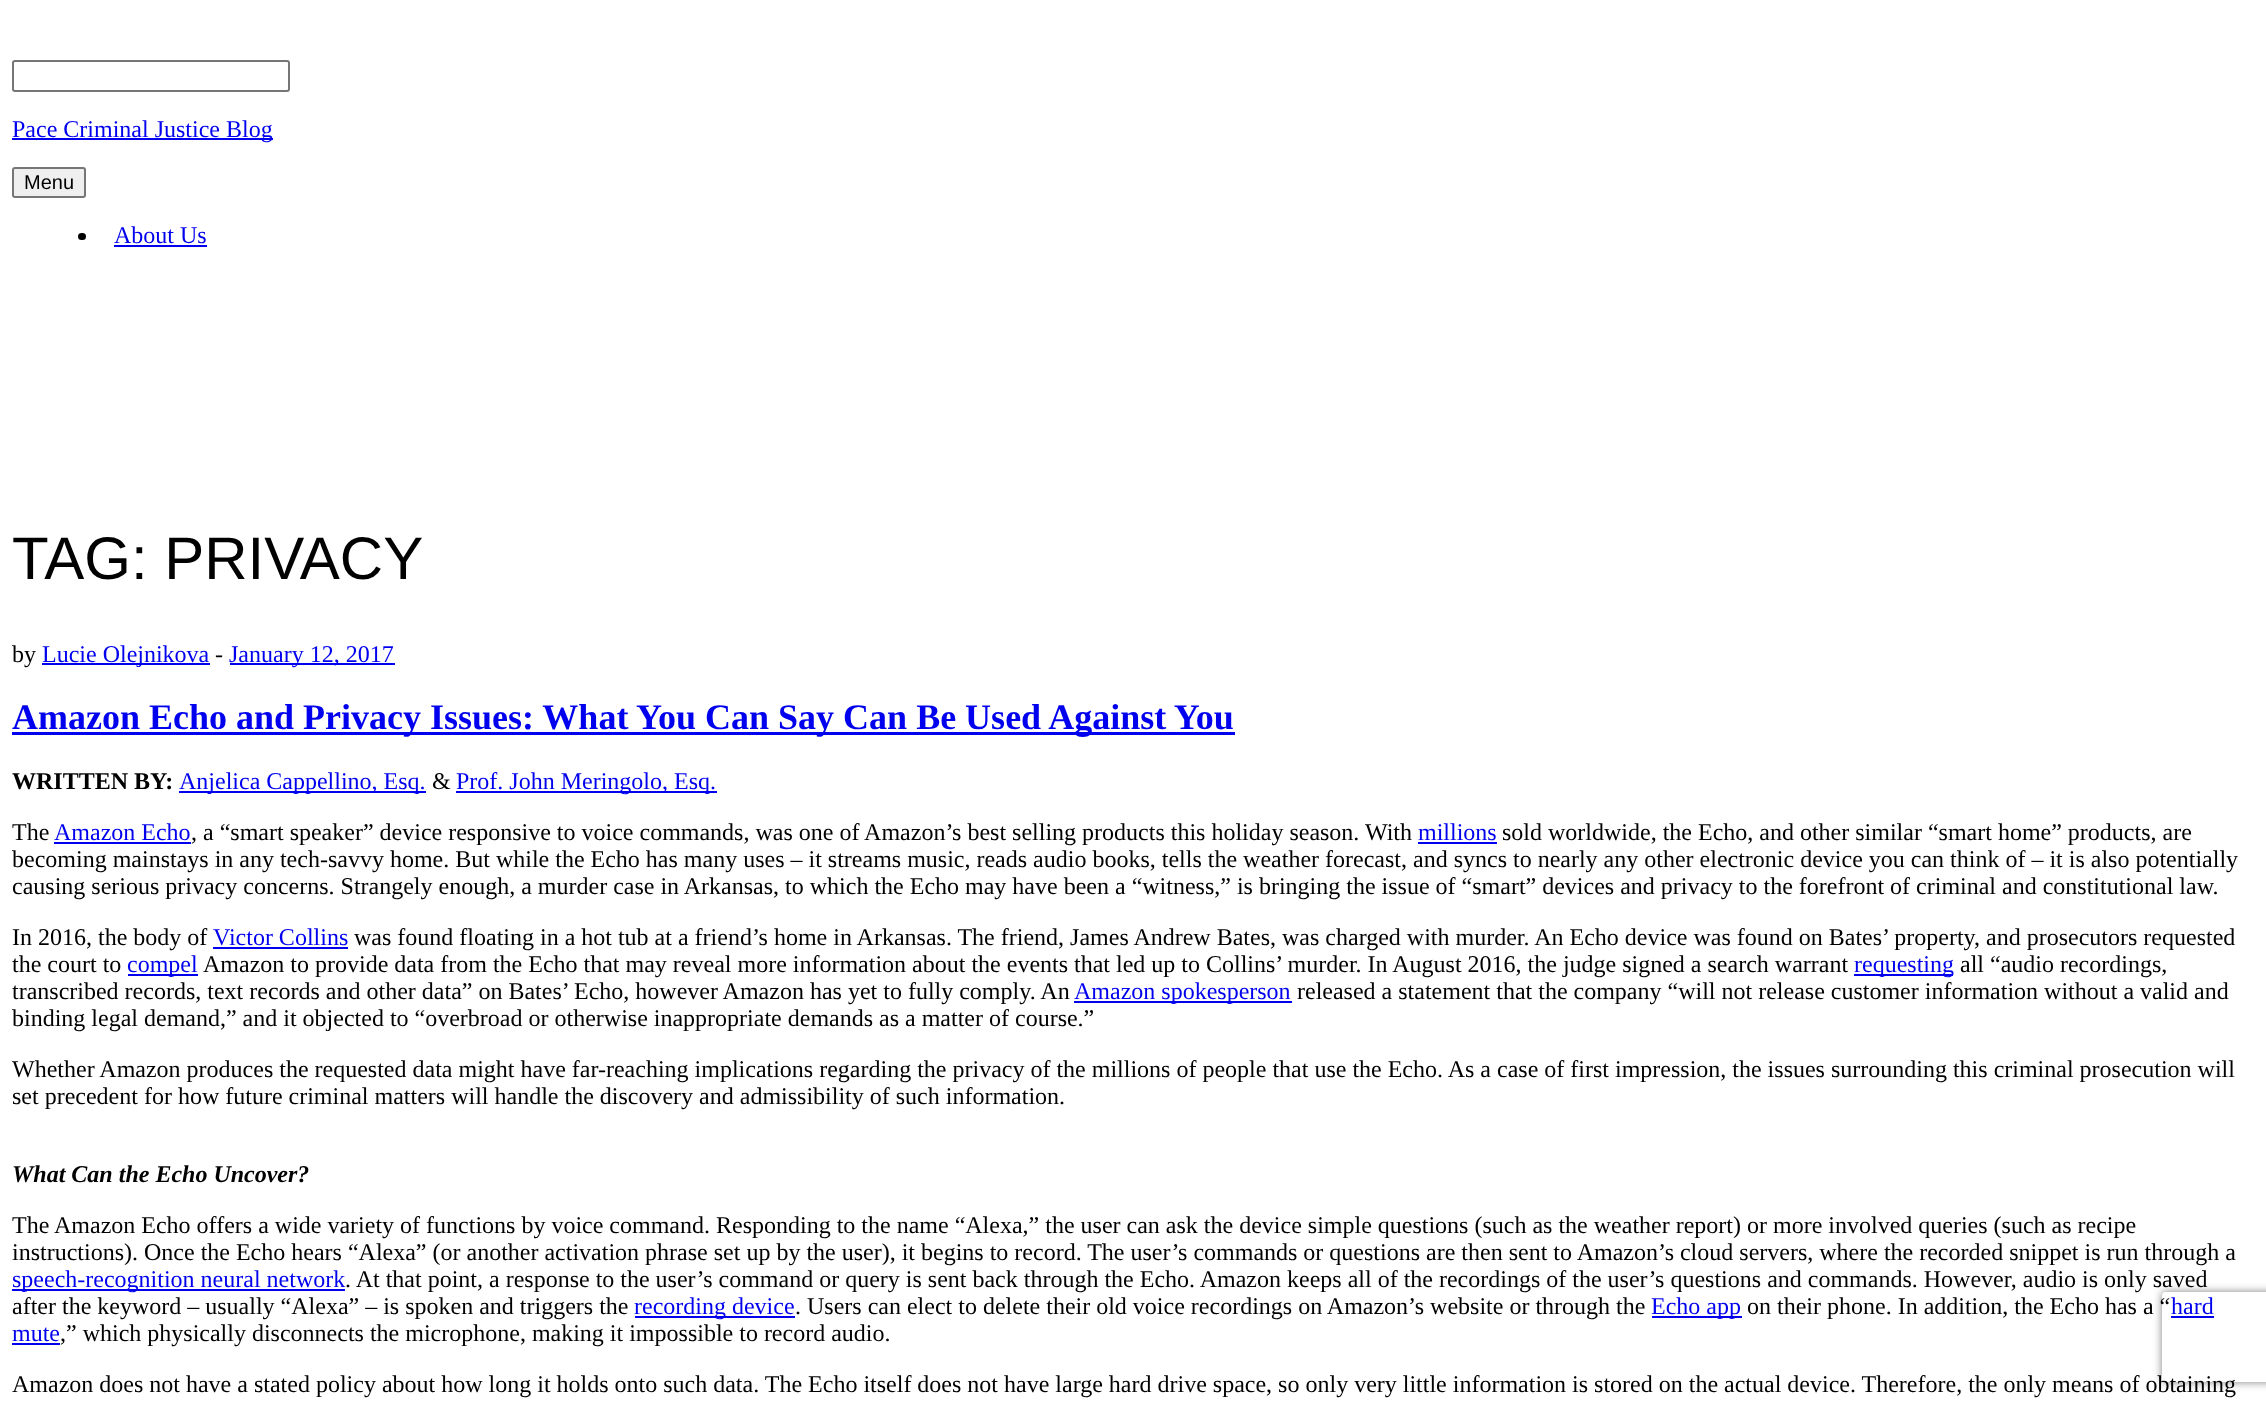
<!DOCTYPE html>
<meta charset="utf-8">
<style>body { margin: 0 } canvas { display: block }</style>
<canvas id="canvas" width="2266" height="1402"></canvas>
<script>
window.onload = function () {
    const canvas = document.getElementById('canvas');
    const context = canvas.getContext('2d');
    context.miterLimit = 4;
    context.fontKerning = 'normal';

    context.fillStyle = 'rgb(255, 255, 255)';
    context.fillRect(0, 0, 2266, 1402);
    context.beginPath();
    context.roundRect(13, 61, 276, 30, 2);
    context.strokeStyle = 'rgb(118, 118, 118)';
    context.lineWidth = 2;
    context.stroke();
    context.fillStyle = 'rgb(0, 0, 238)';
    context.fillRect(12, 138, 261, 2);
    context.fillStyle = 'rgb(239, 239, 239)';
    context.beginPath();
    context.roundRect(13, 168, 72, 29, 2);
    context.fill();
    context.stroke();
    context.fillStyle = 'rgb(0, 0, 0)';
    context.beginPath();
    context.roundRect(78, 233, 8, 7, 3.5);
    context.fill();
    context.fillStyle = 'rgb(0, 0, 238)';
    context.fillRect(114, 245, 93, 2);
    context.fillRect(42, 663, 168, 2);
    context.fillRect(230, 663, 165, 2);
    context.fillRect(12, 732, 1223, 3);
    context.fillRect(179, 791, 247, 2);
    context.fillRect(456, 791, 261, 2);
    context.fillRect(54, 842, 137, 2);
    context.fillRect(1418, 842, 79, 2);
    context.fillRect(213, 947, 135, 2);
    context.fillRect(128, 974, 70, 2);
    context.fillRect(1854, 974, 99, 2);
    context.fillRect(1074, 1001, 218, 2);
    context.fillRect(12, 1289, 333, 2);
    context.fillRect(635, 1316, 160, 2);
    context.fillRect(1652, 1316, 90, 2);
    context.fillRect(2171, 1316, 43, 2);
    context.fillRect(12, 1343, 48, 2);
    context.save();
    context.beginPath();
    context.moveTo(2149, 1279);
    context.lineTo(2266, 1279);
    context.lineTo(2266, 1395);
    context.lineTo(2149, 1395);
    context.closePath();
    context.moveTo(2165, 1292);
    context.lineTo(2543, 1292);
    context.bezierCurveTo(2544.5, 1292, 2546, 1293.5, 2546, 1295);
    context.lineTo(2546, 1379);
    context.bezierCurveTo(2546, 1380.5, 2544.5, 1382, 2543, 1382);
    context.lineTo(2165, 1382);
    context.bezierCurveTo(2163.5, 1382, 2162, 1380.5, 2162, 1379);
    context.lineTo(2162, 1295);
    context.bezierCurveTo(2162, 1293.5, 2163.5, 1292, 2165, 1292);
    context.closePath();
    context.clip('evenodd');
    context.fillStyle = 'rgb(128, 128, 128)';
    context.filter = 'blur(4px)';
    context.beginPath();
    context.roundRect(2162, 1292, 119, 90, 3);
    context.fill();
    context.filter = 'none';
    context.restore();
    context.font = '24px Liberation Serif';
    context.fillText('Pace Criminal Justice Blog', 12, 137);
    context.font = '20px Liberation Sans';
    context.fillStyle = 'rgb(0, 0, 0)';
    context.fillText('Menu', 24, 189);
    context.font = '24px Liberation Serif';
    context.fillStyle = 'rgb(0, 0, 238)';
    context.fillText('About Us', 114, 243);
    context.font = '60px Liberation Sans';
    context.fillStyle = 'rgb(0, 0, 0)';
    context.fillText('TAG: PRIVACY', 12, 579);
    context.font = '24px Liberation Serif';
    context.fillText('by', 12, 662);
    context.fillStyle = 'rgb(0, 0, 238)';
    context.fillText('Lucie Olejnikova', 42, 662);
    context.fillStyle = 'rgb(0, 0, 0)';
    context.fillText('-', 215, 662);
    context.fillStyle = 'rgb(0, 0, 238)';
    context.fillText('January 12, 2017', 229, 662);
    context.font = 'bold 36px Liberation Serif';
    context.fillText('Amazon Echo and Privacy Issues: What You Can Say Can Be Used Against You', 12, 729);
    context.font = 'bold 24px Liberation Serif';
    context.fillStyle = 'rgb(0, 0, 0)';
    context.fillText('WRITTEN BY:', 12, 789);
    context.font = '24px Liberation Serif';
    context.fillStyle = 'rgb(0, 0, 238)';
    context.fillText('Anjelica Cappellino, Esq.', 179, 789);
    context.fillStyle = 'rgb(0, 0, 0)';
    context.fillText('&', 432, 789);
    context.fillStyle = 'rgb(0, 0, 238)';
    context.fillText('Prof. John Meringolo, Esq.', 456, 789);
    context.fillStyle = 'rgb(0, 0, 0)';
    context.fillText('The', 12, 840);
    context.fillStyle = 'rgb(0, 0, 238)';
    context.fillText('Amazon Echo', 54, 840);
    context.fillStyle = 'rgb(0, 0, 0)';
    context.fillText(', a “smart speaker” device responsive to voice commands, was one of Amazon’s best selling products this holiday season. With', 191, 840);
    context.fillStyle = 'rgb(0, 0, 238)';
    context.fillText('millions', 1418, 840);
    context.fillStyle = 'rgb(0, 0, 0)';
    context.fillText('sold worldwide, the Echo, and other similar “smart home” products, are', 1502, 840);
    context.fillText('becoming mainstays in any tech-savvy home. But while the Echo has many uses – it streams music, reads audio books, tells the weather forecast, and syncs to nearly any other electronic device you can think of – it is also potentially', 12, 867);
    context.fillText('causing serious privacy concerns. Strangely enough, a murder case in Arkansas, to which the Echo may have been a “witness,” is bringing the issue of “smart” devices and privacy to the forefront of criminal and constitutional law.', 12, 894);
    context.fillText('In 2016, the body of', 12, 945);
    context.fillStyle = 'rgb(0, 0, 238)';
    context.fillText('Victor Collins', 213, 945);
    context.fillStyle = 'rgb(0, 0, 0)';
    context.fillText('was found floating in a hot tub at a friend’s home in Arkansas. The friend, James Andrew Bates, was charged with murder. An Echo device was found on Bates’ property, and prosecutors requested', 354, 945);
    context.fillText('the court to', 12, 972);
    context.fillStyle = 'rgb(0, 0, 238)';
    context.fillText('compel', 127, 972);
    context.fillStyle = 'rgb(0, 0, 0)';
    context.fillText('Amazon to provide data from the Echo that may reveal more information about the events that led up to Collins’ murder. In August 2016, the judge signed a search warrant', 203, 972);
    context.fillStyle = 'rgb(0, 0, 238)';
    context.fillText('requesting', 1854, 972);
    context.fillStyle = 'rgb(0, 0, 0)';
    context.fillText('all “audio recordings,', 1960, 972);
    context.fillText('transcribed records, text records and other data” on Bates’ Echo, however Amazon has yet to fully comply. An', 12, 999);
    context.fillStyle = 'rgb(0, 0, 238)';
    context.fillText('Amazon spokesperson', 1074, 999);
    context.fillStyle = 'rgb(0, 0, 0)';
    context.fillText('released a statement that the company “will not release customer information without a valid and', 1297, 999);
    context.fillText('binding legal demand,” and it objected to “overbroad or otherwise inappropriate demands as a matter of course.”', 12, 1026);
    context.fillText('Whether Amazon produces the requested data might have far-reaching implications regarding the privacy of the millions of people that use the Echo. As a case of first impression, the issues surrounding this criminal prosecution will', 12, 1077);
    context.fillText('set precedent for how future criminal matters will handle the discovery and admissibility of such information.', 12, 1104);
    context.font = 'italic bold 24px Liberation Serif';
    context.fillText('What Can the Echo Uncover?', 12, 1182);
    context.font = '24px Liberation Serif';
    context.fillText('The Amazon Echo offers a wide variety of functions by voice command. Responding to the name “Alexa,” the user can ask the device simple questions (such as the weather report) or more involved queries (such as recipe', 12, 1233);
    context.fillText('instructions). Once the Echo hears “Alexa” (or another activation phrase set up by the user), it begins to record. The user’s commands or questions are then sent to Amazon’s cloud servers, where the recorded snippet is run through a', 12, 1260);
    context.fillStyle = 'rgb(0, 0, 238)';
    context.fillText('speech-recognition neural network', 12, 1287);
    context.fillStyle = 'rgb(0, 0, 0)';
    context.fillText('. At that point, a response to the user’s command or query is sent back through the Echo. Amazon keeps all of the recordings of the user’s questions and commands. However, audio is only saved', 345, 1287);
    context.fillText('after the keyword – usually “Alexa” – is spoken and triggers the', 12, 1314);
    context.fillStyle = 'rgb(0, 0, 238)';
    context.fillText('recording device', 634, 1314);
    context.fillStyle = 'rgb(0, 0, 0)';
    context.fillText('. Users can elect to delete their old voice recordings on Amazon’s website or through the', 795, 1314);
    context.fillStyle = 'rgb(0, 0, 238)';
    context.fillText('Echo app', 1651, 1314);
    context.fillStyle = 'rgb(0, 0, 0)';
    context.fillText('on their phone. In addition, the Echo has a “', 1747, 1314);
    context.fillStyle = 'rgb(0, 0, 238)';
    context.fillText('hard', 2171, 1314);
    context.fillText('mute', 12, 1341);
    context.fillStyle = 'rgb(0, 0, 0)';
    context.fillText(',” which physically disconnects the microphone, making it impossible to record audio.', 60, 1341);
    context.fillText('Amazon does not have a stated policy about how long it holds onto such data. The Echo itself does not have large hard drive space, so only very little information is stored on the actual device. Therefore, the only means of obtaining', 12, 1392);
};
</script>
